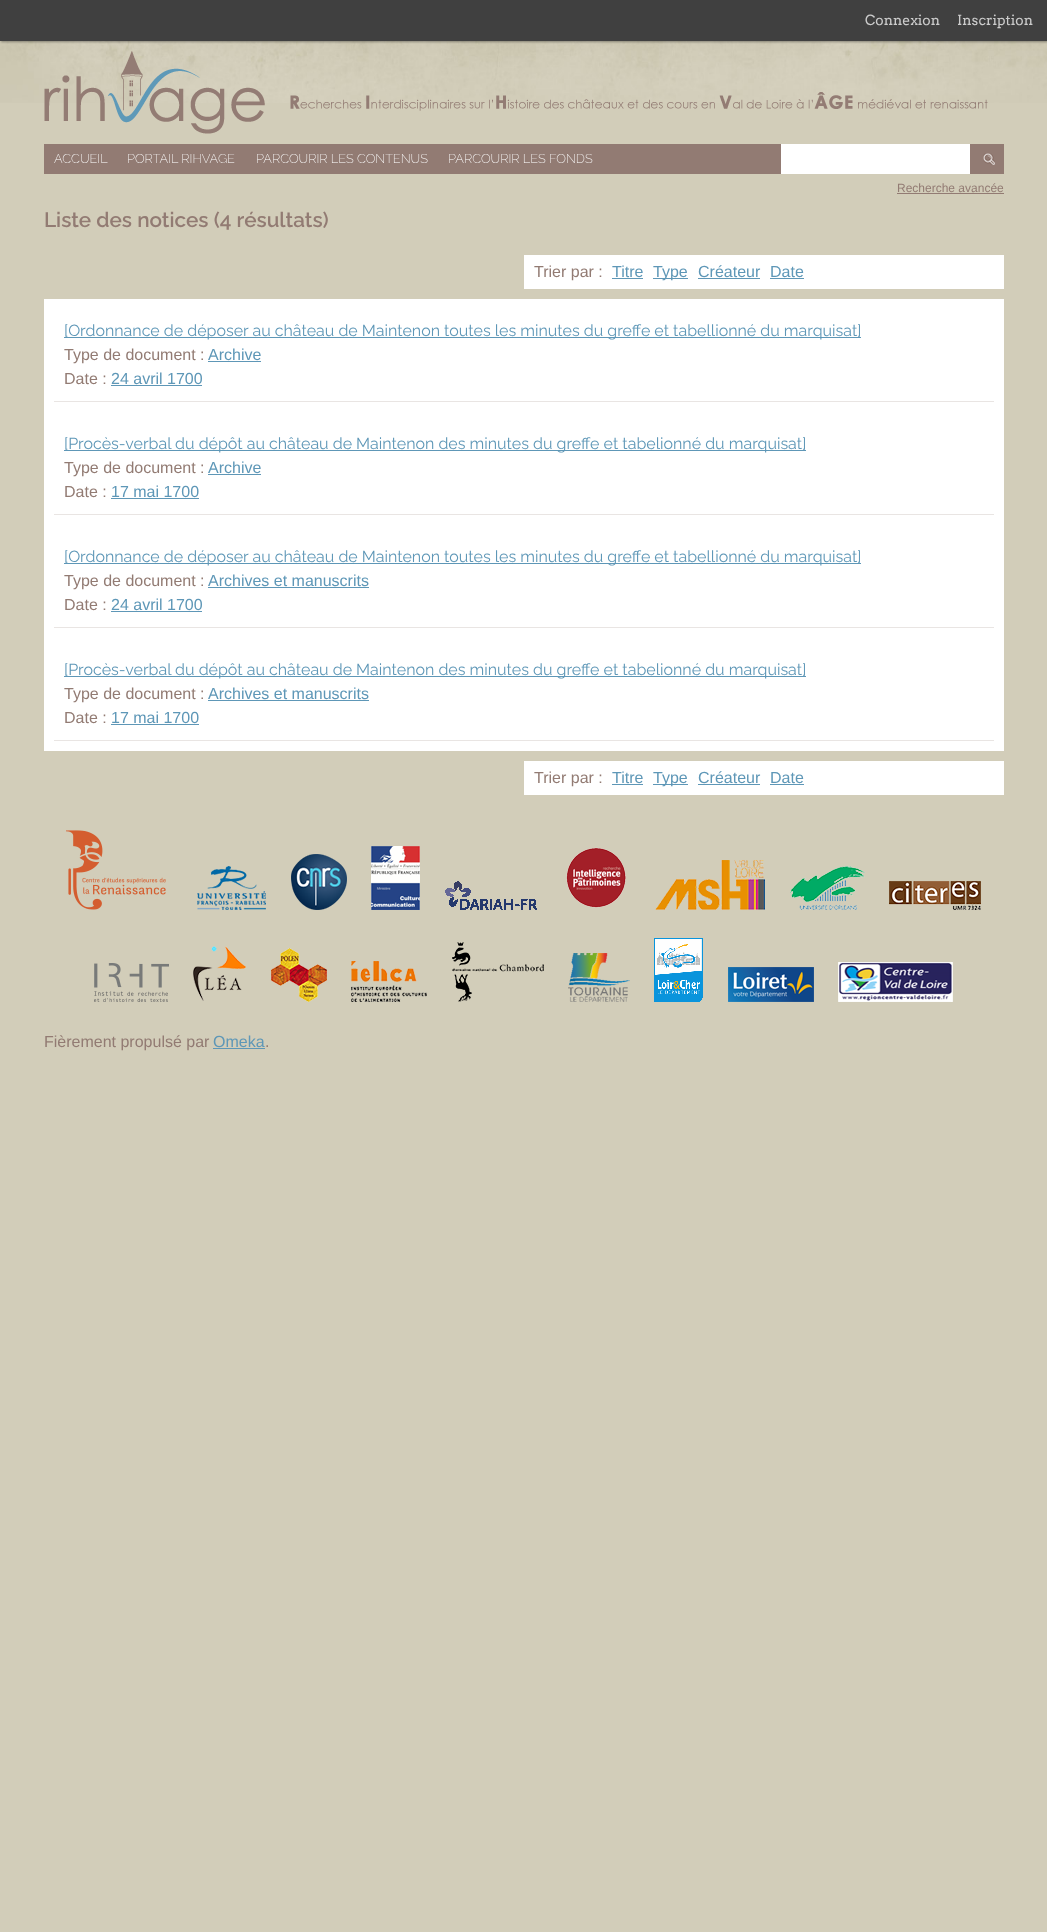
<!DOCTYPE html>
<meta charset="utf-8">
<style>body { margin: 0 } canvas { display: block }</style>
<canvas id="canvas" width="1047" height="1932"></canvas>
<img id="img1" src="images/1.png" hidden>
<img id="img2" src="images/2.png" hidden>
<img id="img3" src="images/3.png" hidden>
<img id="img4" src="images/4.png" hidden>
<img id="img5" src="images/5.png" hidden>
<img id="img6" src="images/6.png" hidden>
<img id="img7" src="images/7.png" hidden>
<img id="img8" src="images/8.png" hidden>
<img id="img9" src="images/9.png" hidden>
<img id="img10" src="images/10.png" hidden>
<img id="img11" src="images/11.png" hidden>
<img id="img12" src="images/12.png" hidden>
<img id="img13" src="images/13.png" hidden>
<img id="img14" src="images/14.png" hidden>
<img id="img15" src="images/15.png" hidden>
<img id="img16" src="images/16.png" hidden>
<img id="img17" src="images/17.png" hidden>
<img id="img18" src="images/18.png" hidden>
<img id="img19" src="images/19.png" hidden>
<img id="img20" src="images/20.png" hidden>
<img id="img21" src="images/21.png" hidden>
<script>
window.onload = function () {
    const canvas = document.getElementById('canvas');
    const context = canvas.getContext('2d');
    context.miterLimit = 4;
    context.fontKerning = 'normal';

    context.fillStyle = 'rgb(210, 205, 185)';
    context.fillRect(0, 0, 1047, 1932);
    context.drawImage(document.getElementById('img1'), 0, 41, 1047, 62);
    context.fillStyle = 'rgba(0, 0, 0, 0.35)';
    context.filter = 'blur(1px)';
    context.beginPath();
    context.rect(1, 1, 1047, 41);
    context.fill();
    context.filter = 'none';
    context.fillStyle = 'rgb(64, 64, 64)';
    context.fillRect(0, 0, 1047, 41);
    context.drawImage(document.getElementById('img2'), 44, 51, 944, 83);
    context.fillStyle = 'rgb(146, 123, 115)';
    context.fillRect(44, 144, 960, 30);
    context.fillStyle = 'rgb(255, 255, 255)';
    context.fillRect(781, 144, 189, 30);
    context.drawImage(document.getElementById('img3'), 983, 153, 12, 12);
    context.fillStyle = 'rgb(146, 123, 115)';
    context.fillRect(897, 193, 107, 1);
    context.fillStyle = 'rgb(255, 255, 255)';
    context.fillRect(524, 255, 480, 34);
    context.fillStyle = 'rgb(94, 151, 183)';
    context.fillRect(612, 278, 31, 1);
    context.fillRect(653, 278, 35, 1);
    context.fillRect(698, 278, 62, 1);
    context.fillRect(770, 278, 34, 1);
    context.fillStyle = 'rgb(255, 255, 255)';
    context.fillRect(44, 299, 960, 452);
    context.fillStyle = 'rgb(233, 229, 227)';
    context.fillRect(54, 401, 940, 1);
    context.fillStyle = 'rgb(94, 151, 183)';
    context.fillRect(64, 337, 797, 1);
    context.fillRect(208, 361, 53, 1);
    context.fillRect(111, 385, 91, 1);
    context.fillStyle = 'rgb(233, 229, 227)';
    context.fillRect(54, 514, 940, 1);
    context.fillStyle = 'rgb(94, 151, 183)';
    context.fillRect(64, 450, 742, 1);
    context.fillRect(208, 474, 53, 1);
    context.fillRect(111, 498, 88, 1);
    context.fillStyle = 'rgb(233, 229, 227)';
    context.fillRect(54, 627, 940, 1);
    context.fillStyle = 'rgb(94, 151, 183)';
    context.fillRect(64, 563, 797, 1);
    context.fillRect(208, 587, 161, 1);
    context.fillRect(111, 611, 91, 1);
    context.fillStyle = 'rgb(233, 229, 227)';
    context.fillRect(54, 740, 940, 1);
    context.fillStyle = 'rgb(94, 151, 183)';
    context.fillRect(64, 676, 742, 1);
    context.fillRect(208, 700, 161, 1);
    context.fillRect(111, 724, 88, 1);
    context.fillStyle = 'rgb(255, 255, 255)';
    context.fillRect(524, 761, 480, 34);
    context.fillStyle = 'rgb(94, 151, 183)';
    context.fillRect(612, 784, 31, 1);
    context.fillRect(653, 784, 35, 1);
    context.fillRect(698, 784, 62, 1);
    context.fillRect(770, 784, 34, 1);
    context.drawImage(document.getElementById('img4'), 66, 830, 100, 80);
    context.drawImage(document.getElementById('img5'), 197, 866, 69, 44);
    context.drawImage(document.getElementById('img6'), 291, 854, 56, 56);
    context.drawImage(document.getElementById('img7'), 371, 846, 49, 64);
    context.drawImage(document.getElementById('img8'), 445, 881, 92, 29);
    context.drawImage(document.getElementById('img9'), 566, 847, 60, 61);
    context.drawImage(document.getElementById('img10'), 655, 860, 110, 50);
    context.drawImage(document.getElementById('img11'), 790, 866, 75, 44);
    context.drawImage(document.getElementById('img12'), 889, 881, 92, 29);
    context.drawImage(document.getElementById('img13'), 94, 963, 75, 39);
    context.drawImage(document.getElementById('img14'), 193, 946, 53, 55);
    context.drawImage(document.getElementById('img15'), 271, 948, 56, 54);
    context.drawImage(document.getElementById('img16'), 351, 961, 76, 41);
    context.drawImage(document.getElementById('img17'), 452, 942, 92, 60);
    context.drawImage(document.getElementById('img18'), 568, 953, 62, 49);
    context.drawImage(document.getElementById('img19'), 654, 938, 49, 64);
    context.drawImage(document.getElementById('img20'), 728, 967, 86, 35);
    context.drawImage(document.getElementById('img21'), 838, 962, 115, 40);
    context.fillRect(213, 1048, 52, 1);
    context.font = '14px Arvo';
    context.fillStyle = 'rgb(204, 204, 204)';
    context.fillText('Connexion', 865, 25);
    context.fillText('Inscription', 957, 25);
    context.font = '200 12.75px Raleway';
    context.fillStyle = 'rgb(255, 255, 255)';
    context.fillText('ACCUEIL', 54, 163);
    context.fillText('PORTAIL RIHVAGE', 127, 163);
    context.fillText('PARCOURIR LES CONTENUS', 256, 163);
    context.fillText('PARCOURIR LES FONDS', 448, 163);
    context.font = '12px Liberation Sans';
    context.fillStyle = 'rgb(146, 123, 115)';
    context.fillText('Recherche avancée', 897, 192);
    context.font = '600 20.75px Raleway';
    context.fillText('Liste des notices (4 résultats)', 44, 227);
    context.font = '16px Liberation Sans';
    context.fillText('Trier par :', 534, 277);
    context.fillStyle = 'rgb(94, 151, 183)';
    context.fillText('Titre', 612, 277);
    context.fillText('Type', 653, 277);
    context.fillText('Créateur', 698, 277);
    context.fillText('Date', 770, 277);
    context.font = '16px Raleway';
    context.fillText('[Ordonnance de déposer au château de Maintenon toutes les minutes du greffe et tabellionné du marquisat]', 64, 336);
    context.font = '16px Liberation Sans';
    context.fillStyle = 'rgb(146, 123, 115)';
    context.fillText('Type de document :', 64, 360);
    context.fillStyle = 'rgb(94, 151, 183)';
    context.fillText('Archive', 208, 360);
    context.fillStyle = 'rgb(146, 123, 115)';
    context.fillText('Date :', 64, 384);
    context.fillStyle = 'rgb(94, 151, 183)';
    context.fillText('24 avril 1700', 111, 384);
    context.font = '16px Raleway';
    context.fillText('[Procès-verbal du dépôt au château de Maintenon des minutes du greffe et tabelionné du marquisat]', 64, 449);
    context.font = '16px Liberation Sans';
    context.fillStyle = 'rgb(146, 123, 115)';
    context.fillText('Type de document :', 64, 473);
    context.fillStyle = 'rgb(94, 151, 183)';
    context.fillText('Archive', 208, 473);
    context.fillStyle = 'rgb(146, 123, 115)';
    context.fillText('Date :', 64, 497);
    context.fillStyle = 'rgb(94, 151, 183)';
    context.fillText('17 mai 1700', 111, 497);
    context.font = '16px Raleway';
    context.fillText('[Ordonnance de déposer au château de Maintenon toutes les minutes du greffe et tabellionné du marquisat]', 64, 562);
    context.font = '16px Liberation Sans';
    context.fillStyle = 'rgb(146, 123, 115)';
    context.fillText('Type de document :', 64, 586);
    context.fillStyle = 'rgb(94, 151, 183)';
    context.fillText('Archives et manuscrits', 208, 586);
    context.fillStyle = 'rgb(146, 123, 115)';
    context.fillText('Date :', 64, 610);
    context.fillStyle = 'rgb(94, 151, 183)';
    context.fillText('24 avril 1700', 111, 610);
    context.font = '16px Raleway';
    context.fillText('[Procès-verbal du dépôt au château de Maintenon des minutes du greffe et tabelionné du marquisat]', 64, 675);
    context.font = '16px Liberation Sans';
    context.fillStyle = 'rgb(146, 123, 115)';
    context.fillText('Type de document :', 64, 699);
    context.fillStyle = 'rgb(94, 151, 183)';
    context.fillText('Archives et manuscrits', 208, 699);
    context.fillStyle = 'rgb(146, 123, 115)';
    context.fillText('Date :', 64, 723);
    context.fillStyle = 'rgb(94, 151, 183)';
    context.fillText('17 mai 1700', 111, 723);
    context.fillStyle = 'rgb(146, 123, 115)';
    context.fillText('Trier par :', 534, 783);
    context.fillStyle = 'rgb(94, 151, 183)';
    context.fillText('Titre', 612, 783);
    context.fillText('Type', 653, 783);
    context.fillText('Créateur', 698, 783);
    context.fillText('Date', 770, 783);
    context.fillStyle = 'rgb(146, 123, 115)';
    context.fillText('Fièrement propulsé par', 44, 1047);
    context.fillStyle = 'rgb(94, 151, 183)';
    context.fillText('Omeka', 213, 1047);
    context.fillStyle = 'rgb(146, 123, 115)';
    context.fillText('.', 265, 1047);
};
</script>
